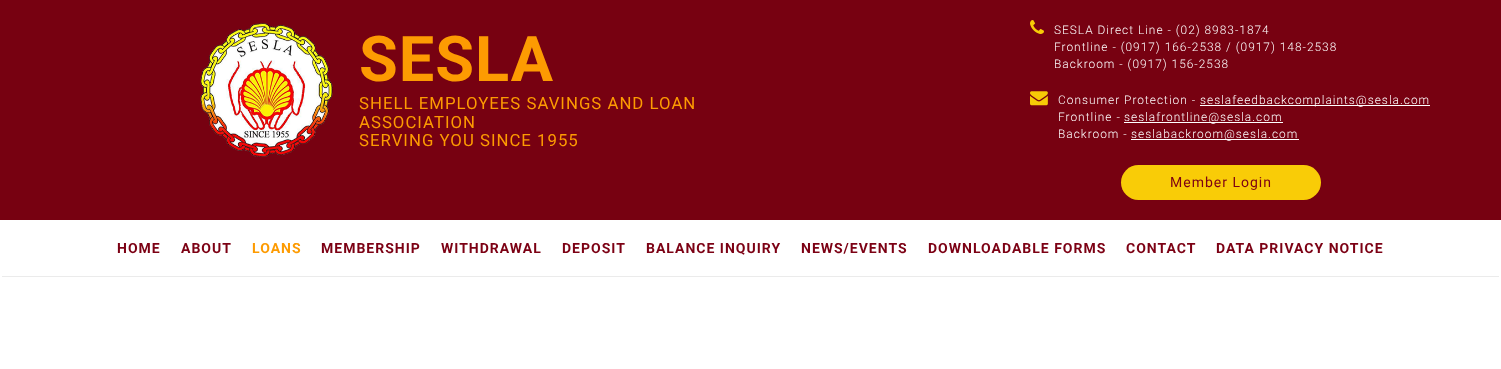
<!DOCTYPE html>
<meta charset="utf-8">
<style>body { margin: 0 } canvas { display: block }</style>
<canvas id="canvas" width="1501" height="369"></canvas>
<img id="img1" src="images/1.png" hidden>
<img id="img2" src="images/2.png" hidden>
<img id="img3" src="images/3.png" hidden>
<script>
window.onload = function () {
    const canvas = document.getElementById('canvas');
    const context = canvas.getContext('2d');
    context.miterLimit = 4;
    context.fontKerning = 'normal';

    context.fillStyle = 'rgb(255, 255, 255)';
    context.fillRect(0, 0, 1501, 369);
    context.fillStyle = 'rgb(119, 1, 17)';
    context.fillRect(0, 0, 1501, 220);
    context.drawImage(document.getElementById('img1'), 200, 23, 133, 134);
    context.drawImage(document.getElementById('img2'), 1030, 20, 14, 14);
    context.drawImage(document.getElementById('img3'), 1030, 91, 18, 15);
    context.fillStyle = 'rgb(255, 255, 255)';
    context.fillRect(1200, 105, 230, 1);
    context.fillRect(1124, 122, 159, 1);
    context.fillRect(1131, 139, 168, 1);
    context.fillStyle = 'rgb(249, 204, 7)';
    context.beginPath();
    context.roundRect(1121, 165, 200, 35, 17.5);
    context.fill();
    context.fillStyle = 'rgb(235, 235, 235)';
    context.fillRect(2, 276, 1497, 1);
    context.letterSpacing = '1px';
    context.font = 'bold 63px Roboto';
    context.fillStyle = 'rgb(253, 155, 2)';
    context.fillText('SESLA', 359, 81);
    context.font = '16.8px Roboto';
    context.fillText('SHELL EMPLOYEES SAVINGS AND LOAN', 359, 109);
    context.fillText('ASSOCIATION', 359, 128);
    context.fillText('SERVING YOU SINCE 1955', 359, 146);
    context.font = '300 11.9px Roboto';
    context.fillStyle = 'rgb(255, 255, 255)';
    context.fillText('SESLA Direct Line - (02) 8983-1874', 1054, 34);
    context.fillText('Frontline - (0917) 166-2538 / (0917) 148-2538', 1054, 51);
    context.fillText('Backroom - (0917) 156-2538', 1054, 68);
    context.fillText('Consumer Protection -', 1058, 104);
    context.fillText('seslafeedbackcomplaints@sesla.com', 1200, 104);
    context.fillText('Frontline -', 1058, 121);
    context.fillText('seslafrontline@sesla.com', 1124, 121);
    context.fillText('Backroom -', 1058, 138);
    context.fillText('seslabackroom@sesla.com', 1131, 138);
    context.font = '14px Roboto';
    context.fillStyle = 'rgb(124, 1, 20)';
    context.fillText('Member Login', 1170, 187);
    context.font = 'bold 14px Roboto';
    context.fillText('HOME', 117, 253);
    context.fillText('ABOUT', 181, 253);
    context.fillStyle = 'rgb(253, 155, 2)';
    context.fillText('LOANS', 252, 253);
    context.fillStyle = 'rgb(124, 1, 20)';
    context.fillText('MEMBERSHIP', 321, 253);
    context.fillText('WITHDRAWAL', 441, 253);
    context.fillText('DEPOSIT', 562, 253);
    context.fillText('BALANCE INQUIRY', 646, 253);
    context.fillText('NEWS/EVENTS', 801, 253);
    context.fillText('DOWNLOADABLE FORMS', 928, 253);
    context.fillText('CONTACT', 1126, 253);
    context.fillText('DATA PRIVACY NOTICE', 1216, 253);
};
</script>
